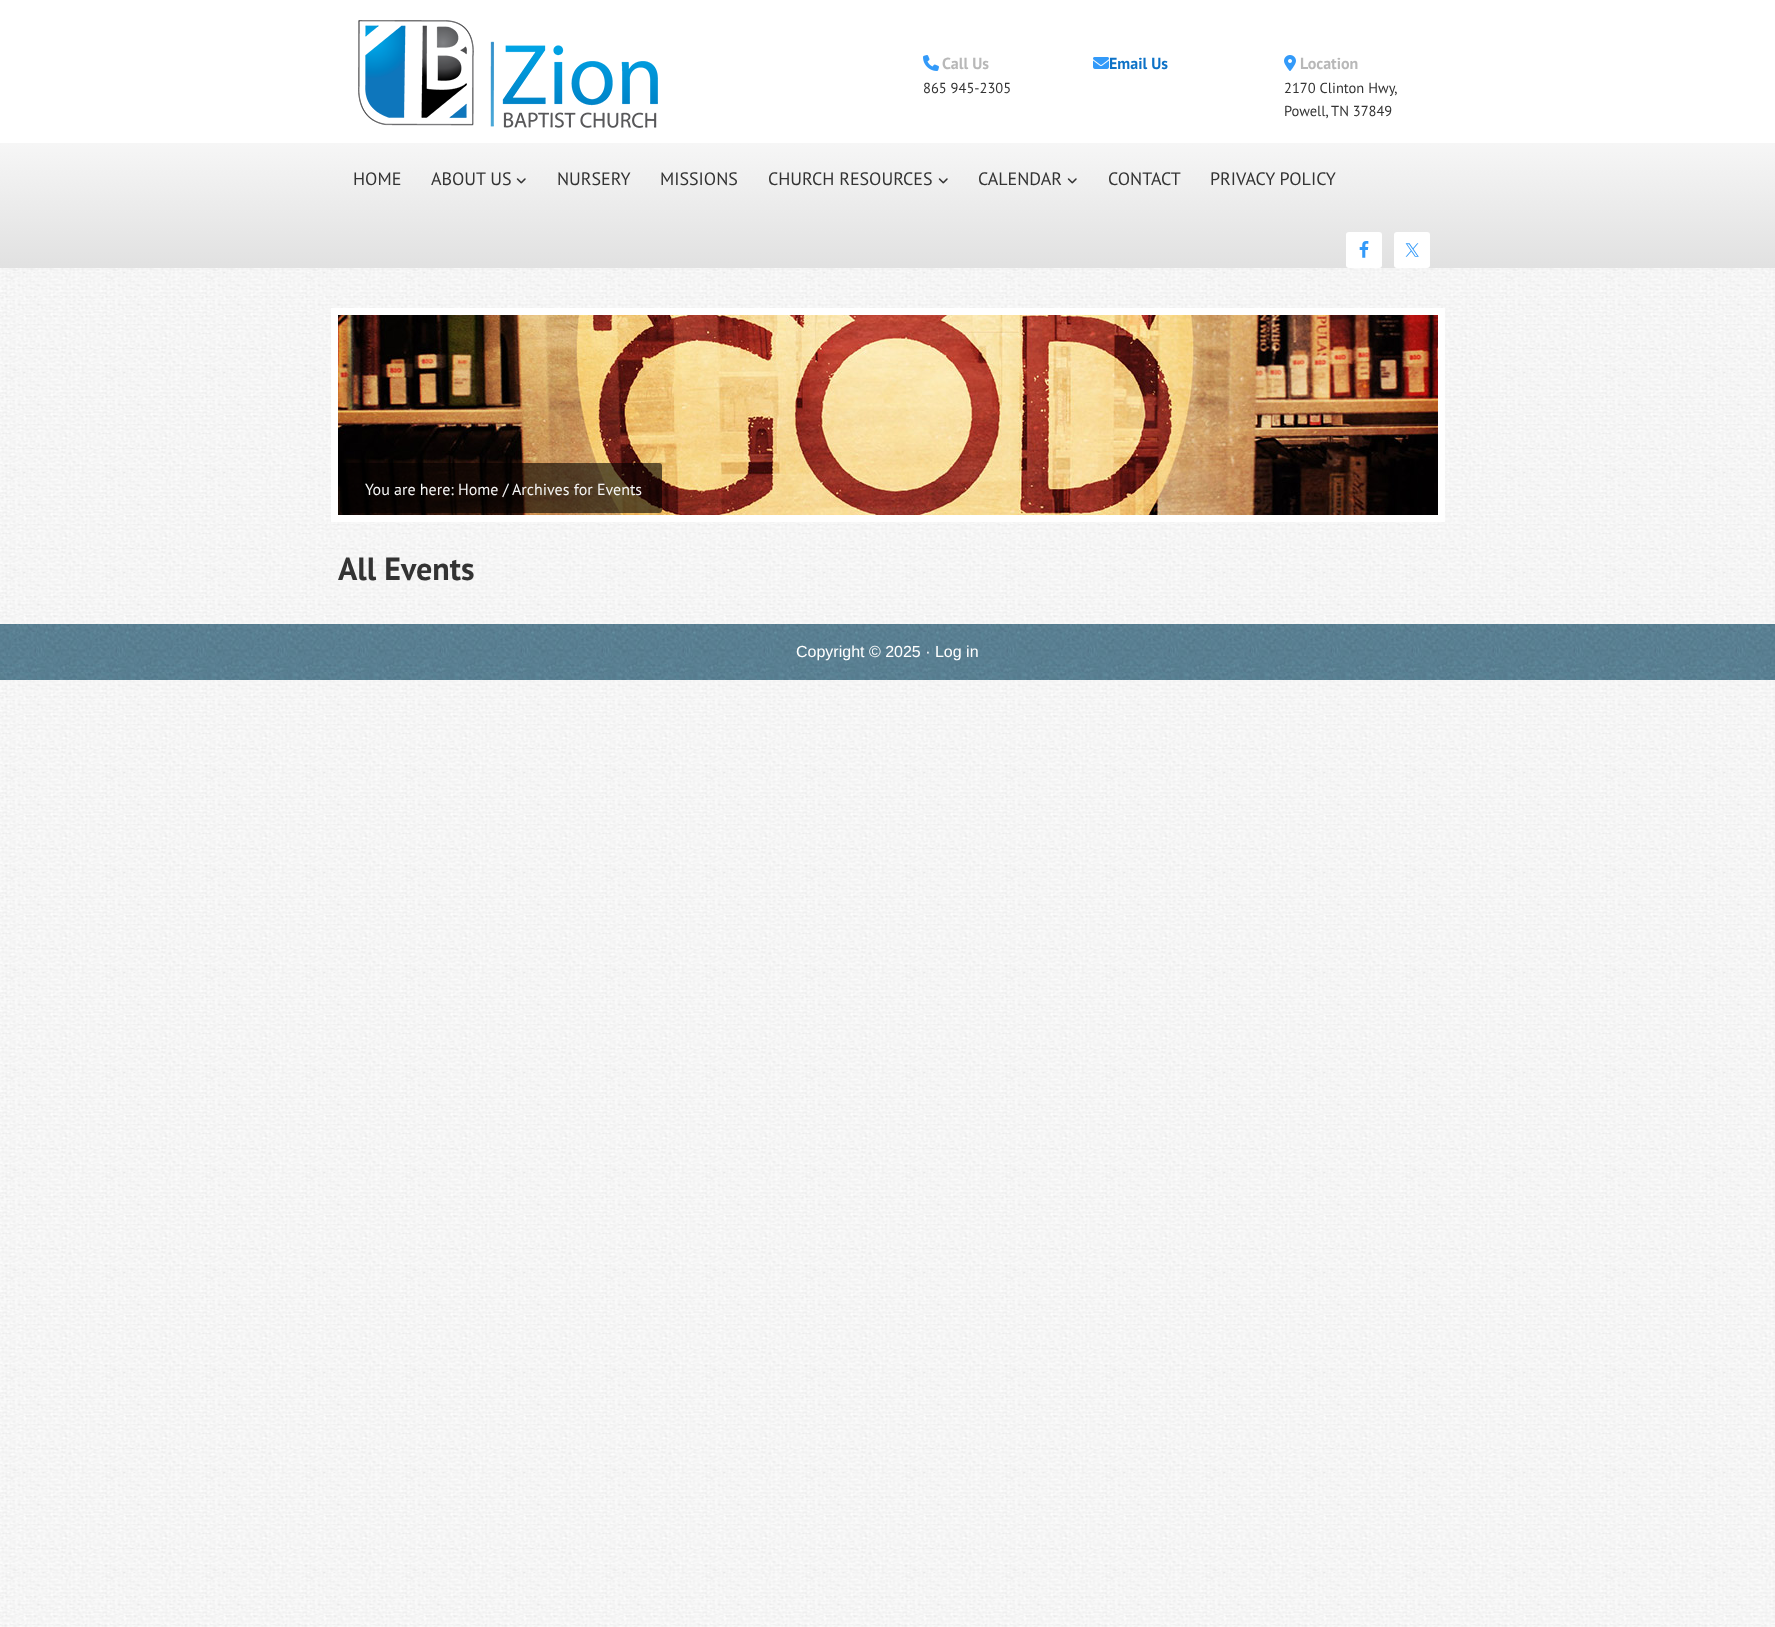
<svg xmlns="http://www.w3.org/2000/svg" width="1775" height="1627">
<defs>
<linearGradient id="g1" gradientUnits="userSpaceOnUse" x1="888" y1="143" x2="888" y2="268"><stop offset="0.01" stop-color="#f6f6f6"/><stop offset="1" stop-color="#e1e1e1"/></linearGradient>
</defs>
<rect width="100%" height="100%" fill="#fff"/>
<image x="0" y="268" width="1775" height="1359" href="media/1.png"/>
<image x="358" y="20" width="300" height="108" href="media/2.png"/>
<image x="923" y="55" width="16" height="16" href="media/3.png"/>
<text x="942" y="69" style="font-family:PT Sans;font-size:16px;font-weight:bold;fill:#b8b8b8">Call Us</text>
<text x="923" y="93" style="font-family:PT Sans;font-size:14.5px;fill:#333">865 945-2305</text>
<image x="1093" y="57" width="16" height="12" href="media/4.png"/>
<text x="1109" y="69" style="font-family:PT Sans;font-size:16px;font-weight:bold;fill:#0d72c7">Email Us</text>
<image x="1284" y="55" width="12" height="16" href="media/5.png"/>
<text x="1300" y="69" style="font-family:PT Sans;font-size:16px;font-weight:bold;fill:#b8b8b8">Location</text>
<text x="1284" y="93" style="font-family:PT Sans;font-size:14.5px;fill:#333">2170 Clinton Hwy,</text>
<text x="1284" y="116" style="font-family:PT Sans;font-size:14.5px;fill:#333">Powell, TN 37849</text>
<rect y="143" width="1775" height="125" fill="url(#g1)"/>
<text x="353" y="185" style="font-family:PT Sans;font-size:18px;fill:#333">HOME</text>
<text x="431" y="185" style="font-family:PT Sans;font-size:18px;fill:#333">ABOUT US</text>
<image x="516" y="178" width="10" height="6" href="media/6.png"/>
<text x="557" y="185" style="font-family:PT Sans;font-size:18px;fill:#333">NURSERY</text>
<text x="660" y="185" style="font-family:PT Sans;font-size:18px;fill:#333">MISSIONS</text>
<text x="768" y="185" style="font-family:PT Sans;font-size:18px;fill:#333">CHURCH RESOURCES</text>
<image x="938" y="178" width="10" height="6" href="media/6.png"/>
<text x="978" y="185" style="font-family:PT Sans;font-size:18px;fill:#333">CALENDAR</text>
<image x="1067" y="178" width="10" height="6" href="media/6.png"/>
<text x="1108" y="185" style="font-family:PT Sans;font-size:18px;fill:#333">CONTACT</text>
<text x="1210" y="185" style="font-family:PT Sans;font-size:18px;fill:#333">PRIVACY POLICY</text>
<rect x="1346" y="232" width="36" height="36" rx="3" fill="#fff"/>
<image x="1359" y="241" width="10" height="17" href="media/7.png"/>
<rect x="1394" y="232" width="36" height="36" rx="3" fill="#fff"/>
<image x="1405" y="243" width="14" height="14" href="media/8.png"/>
<rect x="331" y="308" width="1114" height="214" fill="#00000033" filter="blur(0.5px)"/>
<rect x="334.5" y="311.5" width="1107" height="207" fill="none" stroke="#fff" stroke-width="7"/>
<image x="338" y="315" width="1100" height="200" href="media/9.png"/>
<rect x="340" y="463" width="322" height="50" rx="3" fill="#00000099"/>
<text x="365" y="495" style="font-family:PT Sans;font-size:16px;fill:#f5f5f5">You are here: Home /</text>
<text x="512" y="495" style="font-family:PT Sans;font-size:16px;fill:#f5f5f5">Archives for Events</text>
<text x="338" y="580" style="font-family:PT Sans;font-size:32px;font-weight:bold;fill:#333">All Events</text>
<image x="0" y="624" width="1775" height="56" href="media/10.png"/>
<text x="796" y="657" style="font-family:Liberation Sans;font-size:16px;fill:#fff">Copyright © 2025 · Log in</text>
</svg>
